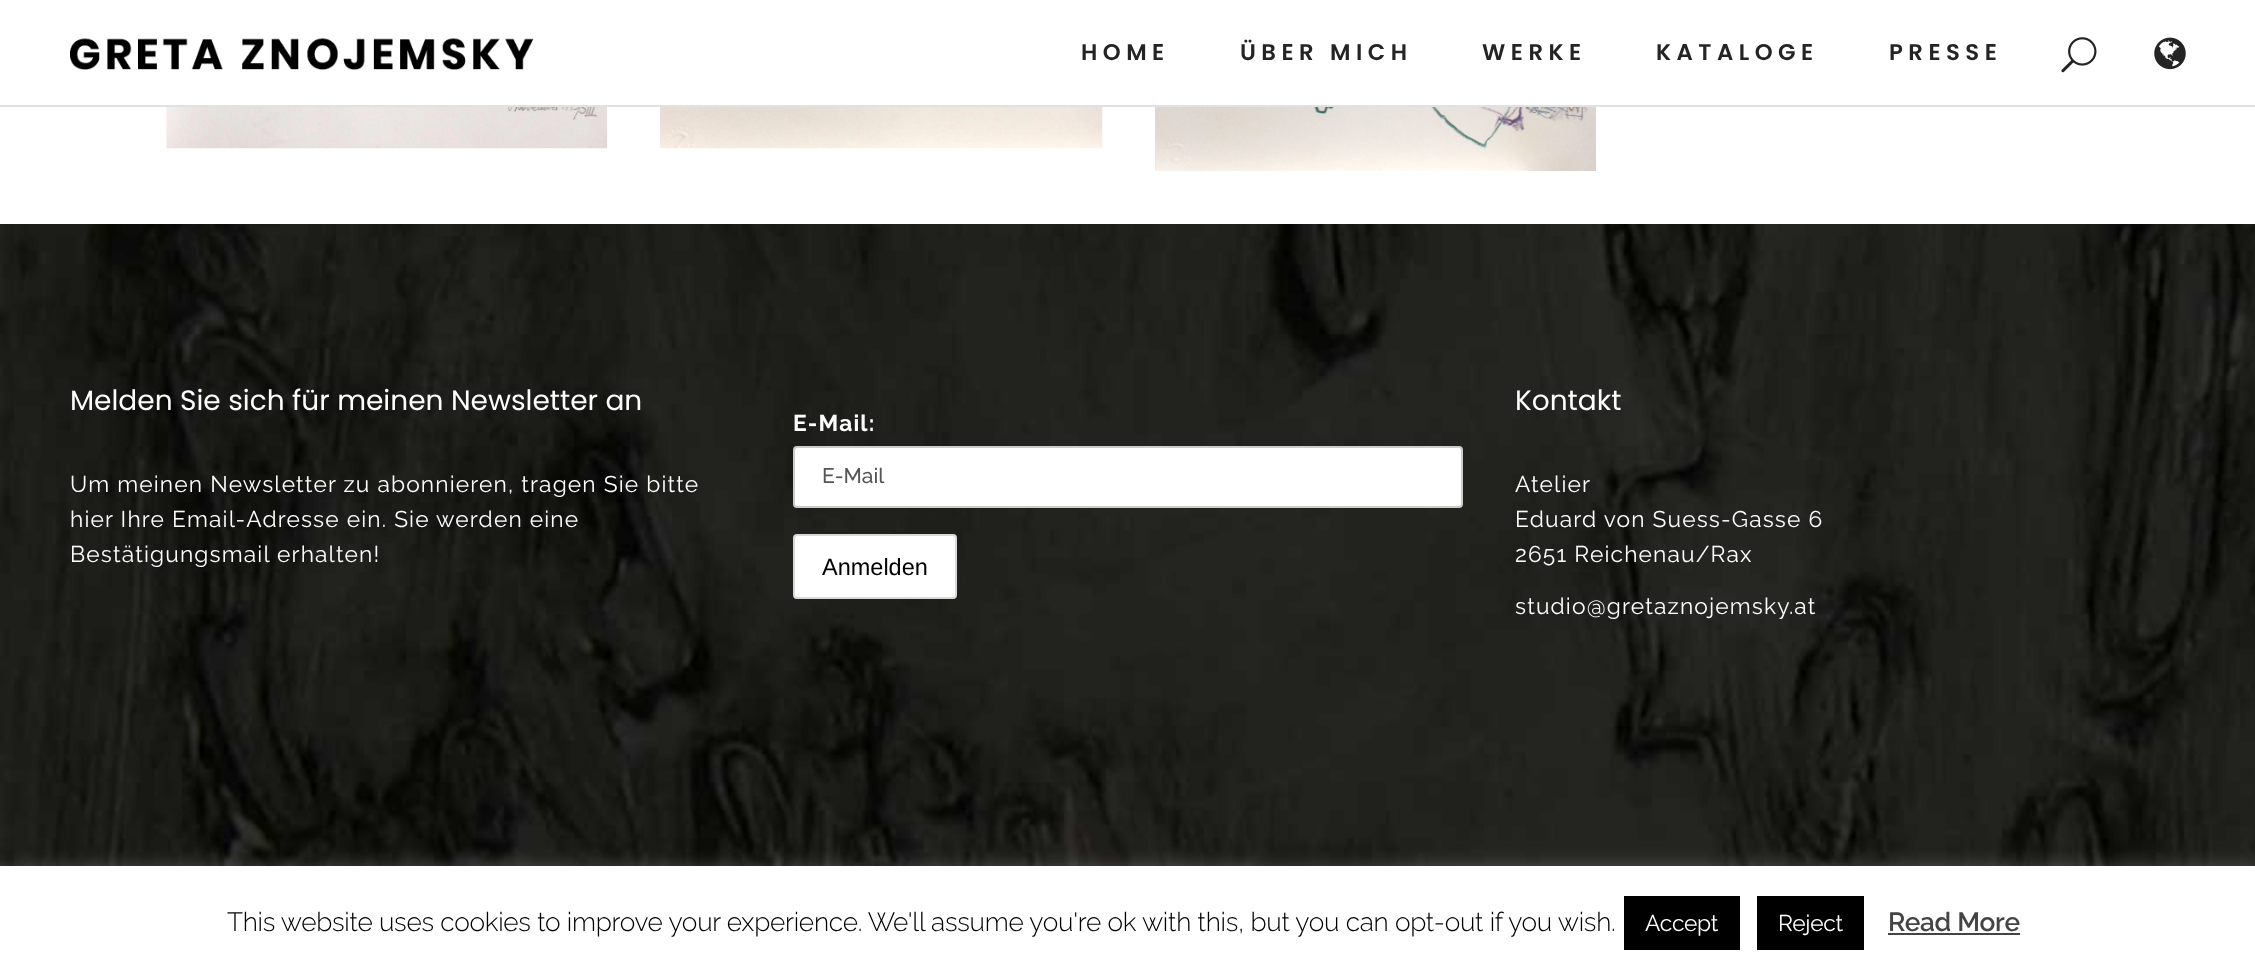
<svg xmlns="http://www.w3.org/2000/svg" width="2255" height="980">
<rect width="100%" height="100%" fill="#fff"/>
<rect y="105" width="2255" height="2" fill="#e1e1e1"/>
<image x="70" y="38" width="464" height="32" href="media/1.png"/>
<text x="1081" y="60" style="font-family:Poppins;font-size:22.75px;font-weight:600;letter-spacing:5.5px;fill:#242424">HOME</text>
<text x="1240" y="60" style="font-family:Poppins;font-size:22.75px;font-weight:600;letter-spacing:5.5px;fill:#242424">ÜBER MICH</text>
<text x="1482" y="60" style="font-family:Poppins;font-size:22.75px;font-weight:600;letter-spacing:5.5px;fill:#242424">WERKE</text>
<text x="1656" y="60" style="font-family:Poppins;font-size:22.75px;font-weight:600;letter-spacing:5.5px;fill:#242424">KATALOGE</text>
<text x="1889" y="60" style="font-family:Poppins;font-size:22.75px;font-weight:600;letter-spacing:5.5px;fill:#242424">PRESSE</text>
<image x="2061" y="37" width="36" height="36" href="media/2.png"/>
<image x="2154" y="37" width="32" height="33" href="media/3.png"/>
<image x="166" y="107" width="441" height="42" href="media/4.png"/>
<image x="660" y="107" width="443" height="42" href="media/5.png"/>
<image x="1155" y="107" width="441" height="64" href="media/6.png"/>
<image x="0" y="224" width="2255" height="642" href="media/7.png"/>
<text x="70" y="410" style="font-family:Poppins;font-size:28px;fill:#fff">Melden Sie sich für meinen Newsletter an</text>
<text x="70" y="492" style="font-family:Raleway;font-size:22.75px;letter-spacing:1.15px;fill:#fff">Um meinen Newsletter zu abonnieren, tragen Sie bitte</text>
<text x="70" y="527" style="font-family:Raleway;font-size:22.75px;letter-spacing:1.15px;fill:#fff">hier Ihre Email-Adresse ein. Sie werden eine</text>
<text x="70" y="562" style="font-family:Raleway;font-size:22.75px;letter-spacing:1.15px;fill:#fff">Bestätigungsmail erhalten!</text>
<text x="793" y="431" style="font-family:Raleway;font-size:22.75px;font-weight:bold;letter-spacing:1.15px;fill:#fff">E-Mail:</text>
<rect x="794" y="447" width="668" height="60" rx="3" fill="#fff" stroke="#ccc" stroke-width="2"/>
<text x="822" y="483" style="font-family:Raleway;font-size:21px;font-weight:500;fill:#555">E-Mail</text>
<rect x="794" y="535" width="162" height="63" rx="3" fill="#fff" stroke="#d9d9d9" stroke-width="2"/>
<text x="822" y="575" style="font-family:Liberation Sans;font-size:23.5px;fill:#000">Anmelden</text>
<text x="1515" y="410" style="font-family:Poppins;font-size:28px;fill:#fff">Kontakt</text>
<text x="1515" y="492" style="font-family:Raleway;font-size:22.75px;letter-spacing:1.15px;fill:#fff">Atelier</text>
<text x="1515" y="527" style="font-family:Raleway;font-size:22.75px;letter-spacing:1.15px;fill:#fff">Eduard von Suess-Gasse 6</text>
<text x="1515" y="562" style="font-family:Raleway;font-size:22.75px;letter-spacing:1.15px;fill:#fff">2651 Reichenau/Rax</text>
<text x="1515" y="614" style="font-family:Raleway;font-size:22.75px;letter-spacing:1.15px;fill:#fff">studio@gretaznojemsky.at</text>
<rect y="865" width="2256" height="113" fill="#acabab4d" filter="blur(9px)"/>
<rect y="866" width="2255" height="114" fill="#fff"/>
<text x="227" y="931" style="font-family:Raleway;font-size:26.25px;font-weight:300;letter-spacing:-0.26px;fill:#000">This website uses cookies to improve your experience. We'll assume you're ok with this, but you can opt-out if you wish.</text>
<rect x="1624" y="896" width="116" height="54" fill="#000"/>
<text x="1645" y="931" style="font-family:Raleway;font-size:22.75px;letter-spacing:-0.26px;fill:#fff">Accept</text>
<rect x="1757" y="896" width="107" height="54" fill="#000"/>
<text x="1778" y="931" style="font-family:Raleway;font-size:22.75px;letter-spacing:-0.26px;fill:#fff">Reject</text>
<text x="1888" y="931" style="font-family:Raleway;font-size:26.25px;font-weight:600;letter-spacing:-0.26px;fill:#444">Read More</text>
<rect x="1888" y="933" width="132" height="2" fill="#444"/>
</svg>
